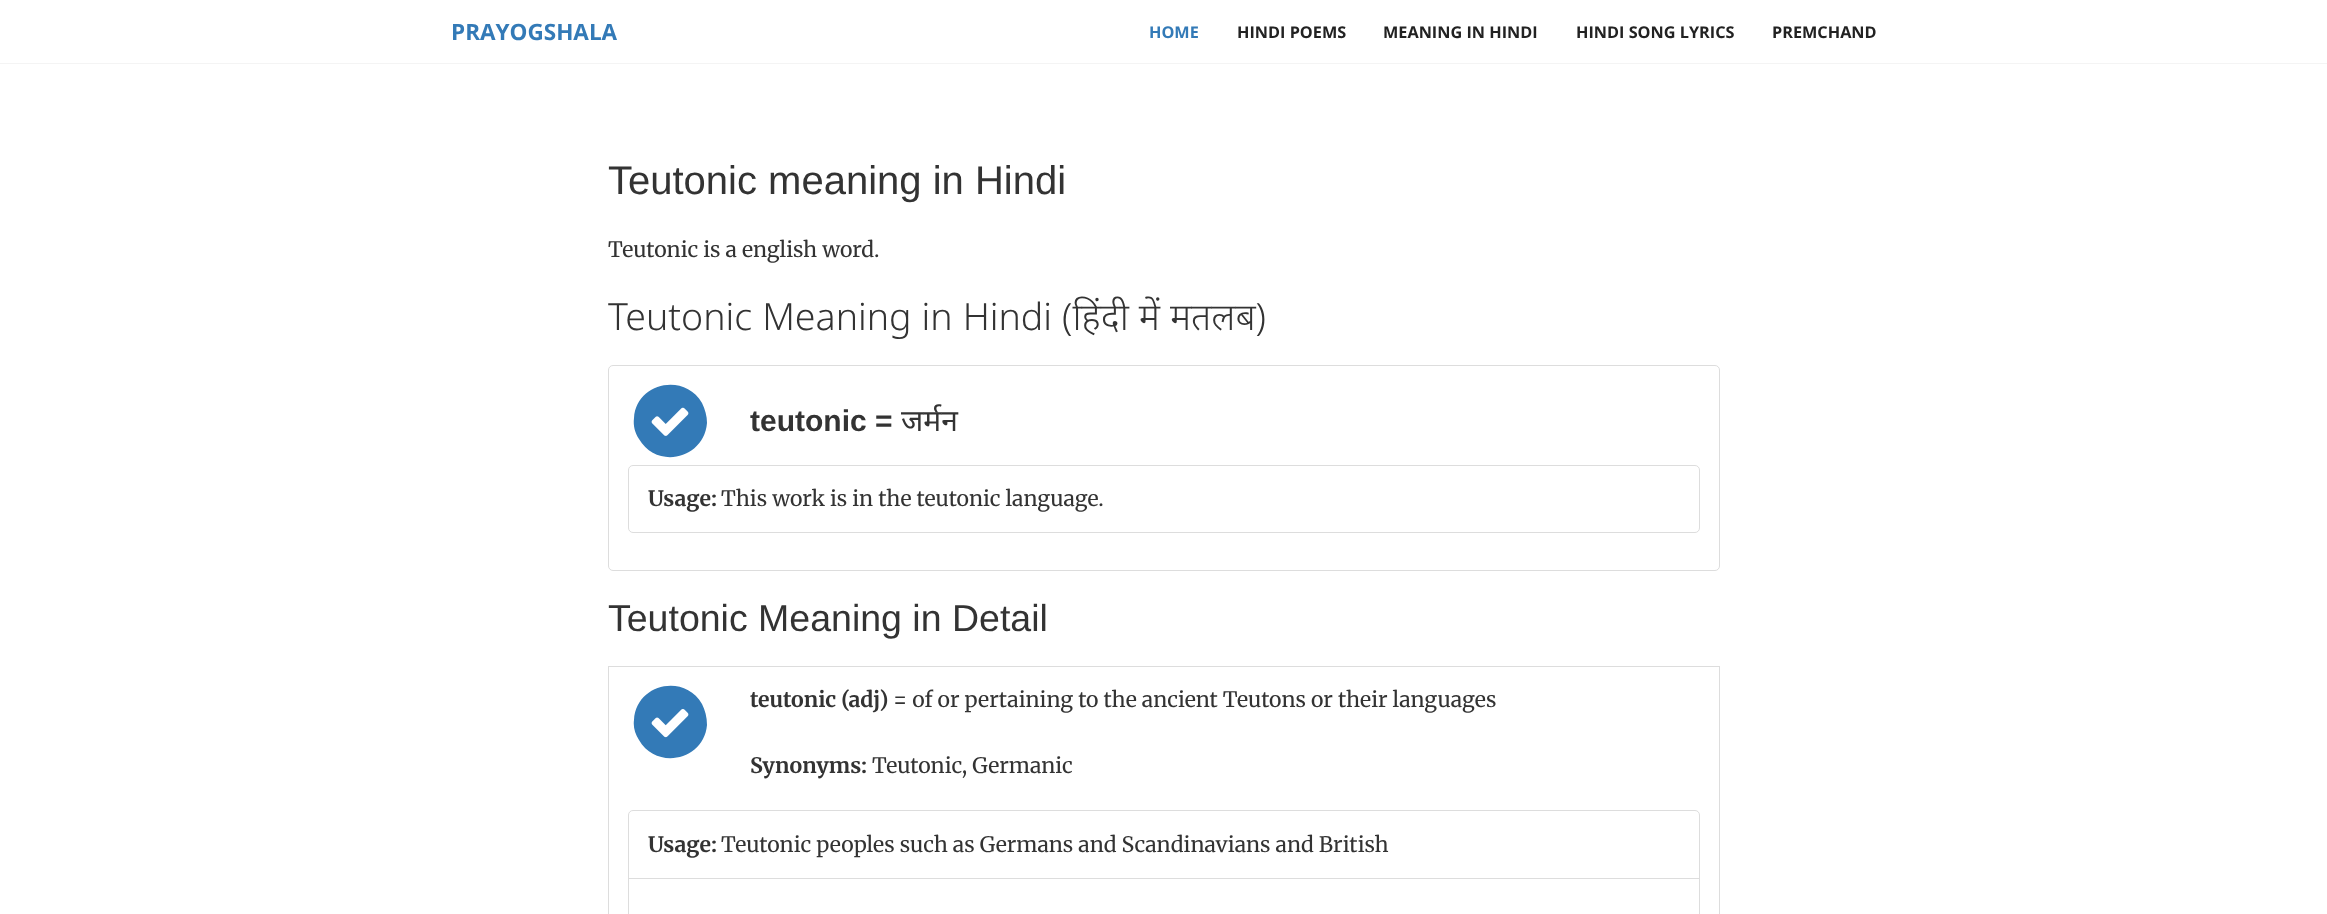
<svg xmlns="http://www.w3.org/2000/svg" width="2327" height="914">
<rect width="100%" height="100%" fill="#fff"/>
<rect y="63" width="2327" height="1" fill="#f4f4f4"/>
<text x="451" y="40" style="font-family:Open Sans;font-size:22.5px;font-weight:bold;fill:#337ab7">PRAYOGSHALA</text>
<text x="1149" y="38" style="font-family:Open Sans;font-size:16.25px;font-weight:bold;fill:#337ab7">HOME</text>
<text x="1237" y="38" style="font-family:Open Sans;font-size:16.25px;font-weight:bold;fill:#222">HINDI POEMS</text>
<text x="1383" y="38" style="font-family:Open Sans;font-size:16.25px;font-weight:bold;fill:#222">MEANING IN HINDI</text>
<text x="1576" y="38" style="font-family:Open Sans;font-size:16.25px;font-weight:bold;fill:#222">HINDI SONG LYRICS</text>
<text x="1772" y="38" style="font-family:Open Sans;font-size:16.25px;font-weight:bold;fill:#222">PREMCHAND</text>
<text x="608" y="194" style="font-family:Liberation Sans;font-size:40px;fill:#333">Teutonic meaning in Hindi</text>
<text x="608" y="257" style="font-family:Merriweather;font-size:21.25px;fill:#333">Teutonic is a english word.</text>
<text x="608" y="330" word-spacing="0.25" style="font-family:Noto Sans;font-size:37.5px;font-weight:300;fill:#333">Teutonic Meaning in Hindi (हिंदी में मतलब)</text>
<rect x="608.5" y="365.5" width="1111" height="205" rx="4.5" fill="none" stroke="#ddd"/>
<path d="M702 403c3 6 5 13 5 20c-3 36-50 47-68 16c-4-6-6-13-5-21c2-35 50-46 68-15z" fill="#337ab7"/>
<image x="651" y="407" width="38" height="29" href="media/1.png"/>
<text x="750" y="431" style="font-family:Liberation Sans;font-size:30px;font-weight:bold;fill:#333">teutonic =</text>
<text x="901" y="431" style="font-family:Noto Sans;font-size:30px;fill:#333">जर्मन</text>
<rect x="628.5" y="465.5" width="1071" height="67" rx="4.5" fill="none" stroke="#ddd"/>
<text x="648" y="506" style="font-family:Merriweather;font-size:21.25px;font-weight:bold;fill:#333">Usage:</text>
<text x="721" y="506" style="font-family:Merriweather;font-size:21.25px;fill:#333">This work is in the teutonic language.</text>
<text x="608" y="631" style="font-family:Liberation Sans;font-size:37.5px;fill:#333">Teutonic Meaning in Detail</text>
<rect x="608.5" y="666.5" width="1111" height="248" fill="none" stroke="#ddd"/>
<path d="M702 704c3 6 5 13 5 21c-3 35-50 46-68 15c-4-6-6-13-5-20c2-36 50-47 68-16z" fill="#337ab7"/>
<image x="651" y="709" width="38" height="29" href="media/2.png"/>
<text x="750" y="707" style="font-family:Merriweather;font-size:21.25px;font-weight:bold;fill:#333">teutonic (adj)</text>
<text x="893" y="707" style="font-family:Merriweather;font-size:21.25px;fill:#333">= of or pertaining to the ancient Teutons or their languages</text>
<text x="750" y="773" style="font-family:Merriweather;font-size:21.25px;font-weight:bold;fill:#333">Synonyms:</text>
<text x="872" y="773" style="font-family:Merriweather;font-size:21.25px;fill:#333">Teutonic, Germanic</text>
<path d="M633 810.5h1062c2.5 0 4.5 2 4.5 4.5v63.5h-1071v-63.5c0-2.5 2-4.5 4.5-4.5z" fill="none" stroke="#ddd"/>
<text x="648" y="852" style="font-family:Merriweather;font-size:21.25px;font-weight:bold;fill:#333">Usage:</text>
<text x="721" y="852" style="font-family:Merriweather;font-size:21.25px;fill:#333">Teutonic peoples such as Germans and Scandinavians and British</text>
<rect x="628.5" y="878.5" width="1071" height="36" fill="none" stroke="#ddd"/>
</svg>
